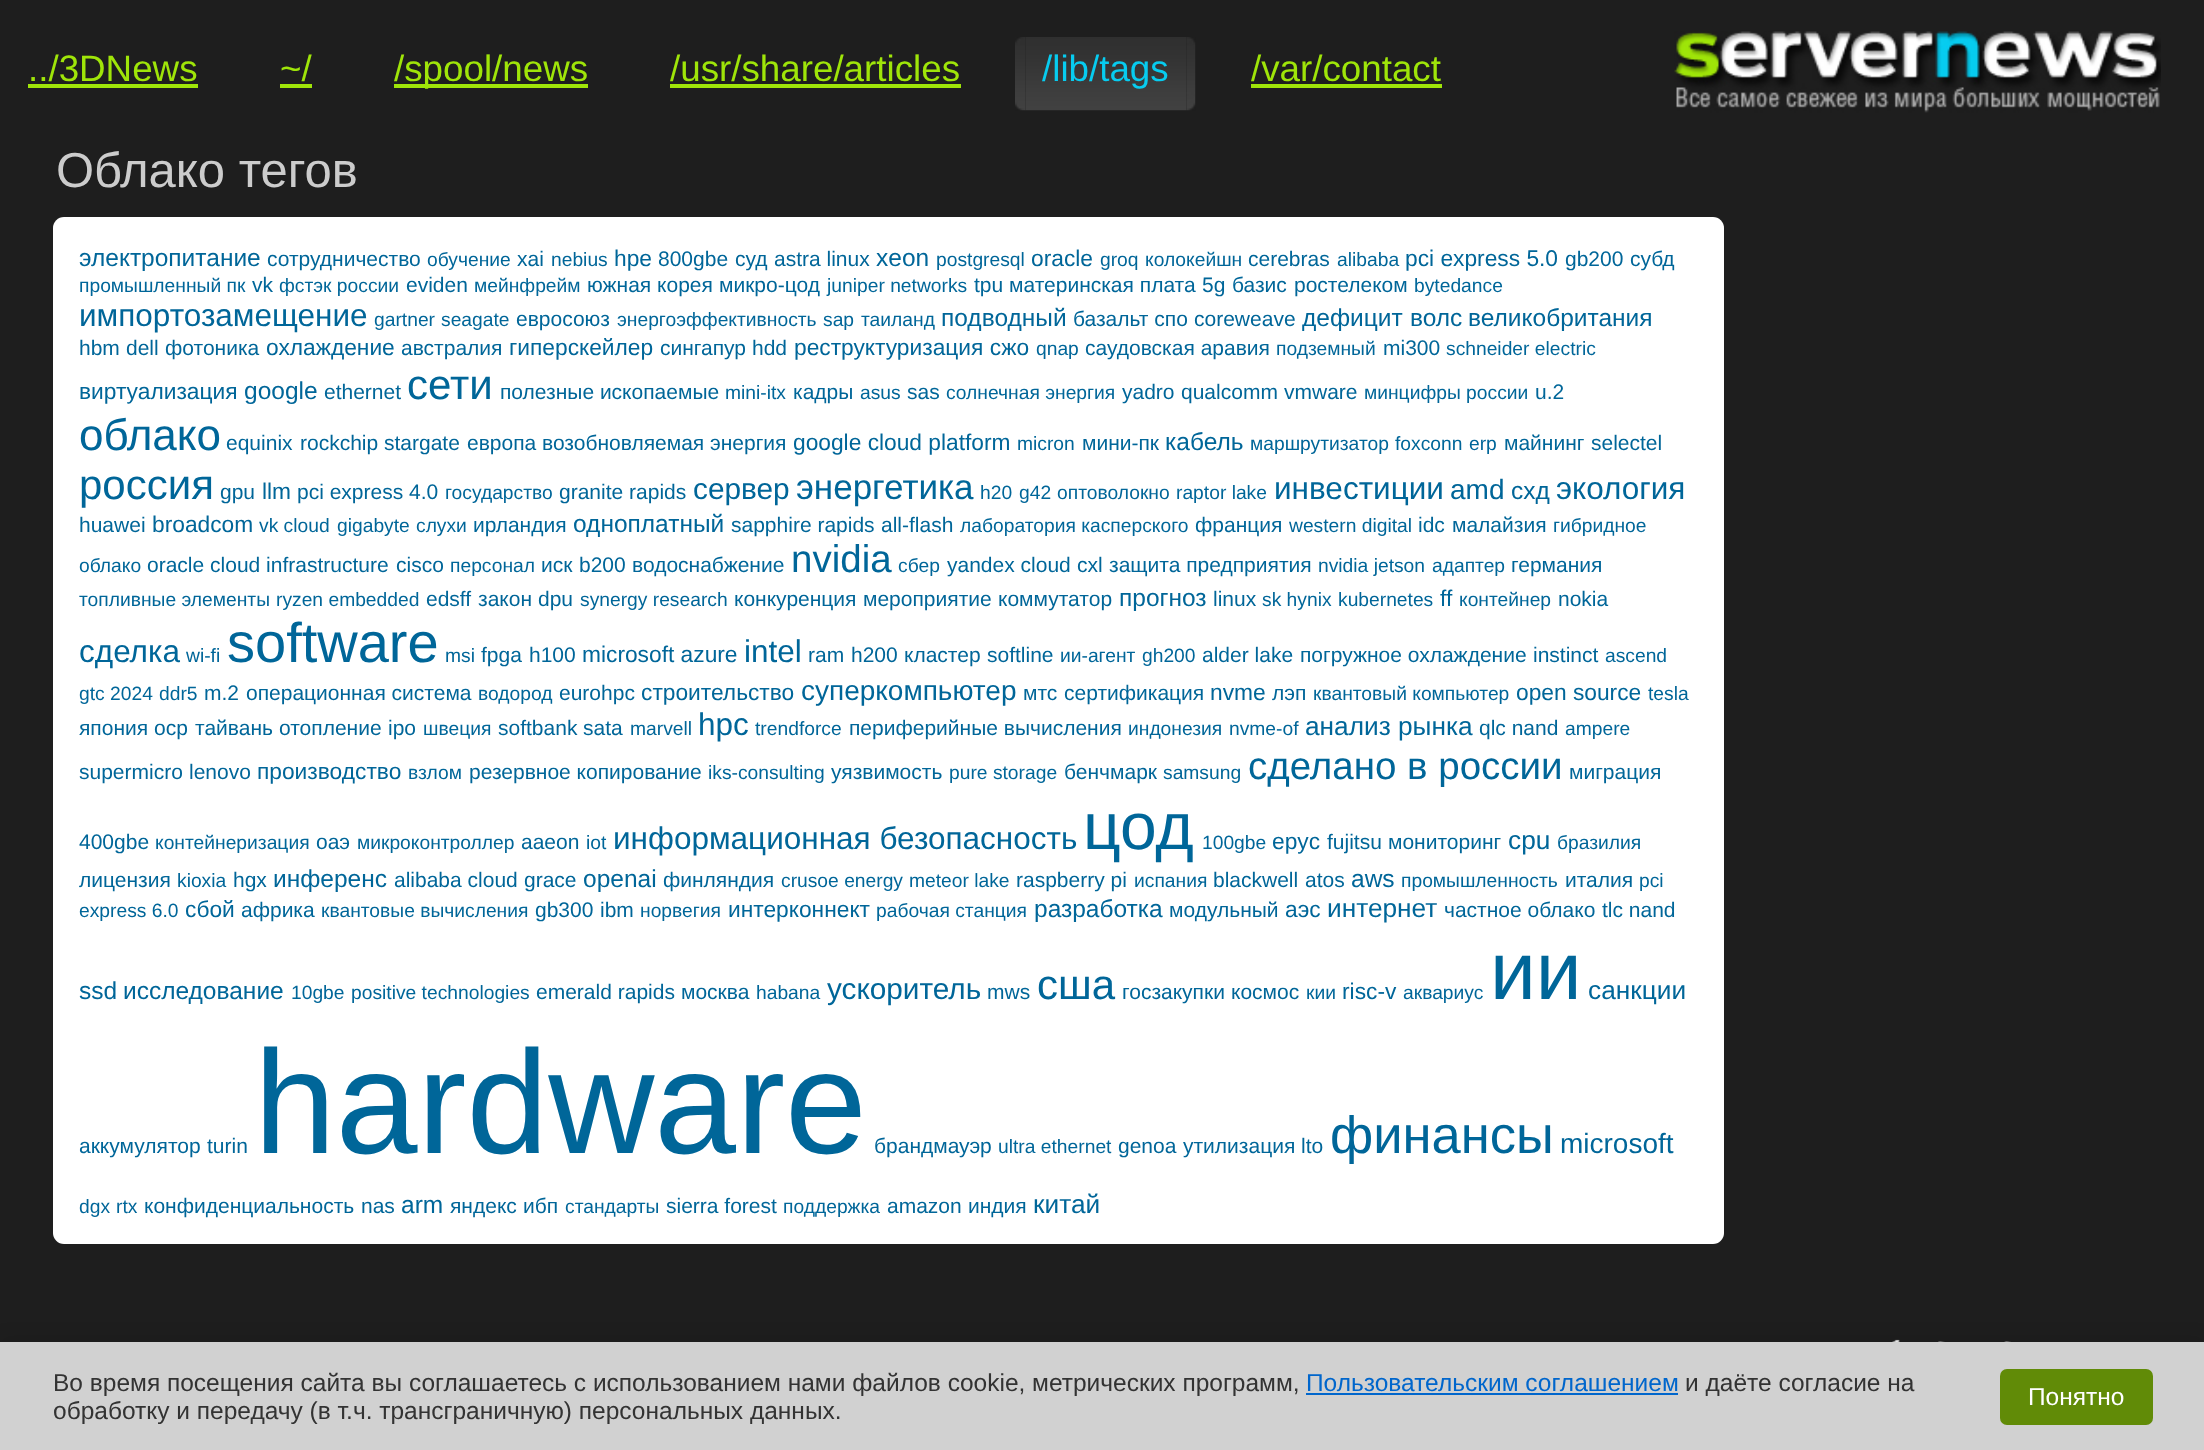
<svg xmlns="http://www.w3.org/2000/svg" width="2204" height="1450">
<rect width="100%" height="100%" fill="#1e1e1e"/>
<text x="28" y="81" style="font-family:Liberation Sans;font-size:36.75px;fill:#9fe509">../3DNews</text>
<rect x="28" y="84" width="170" height="4" fill="#9fe509"/>
<text x="280" y="81" style="font-family:Liberation Sans;font-size:36.75px;fill:#9fe509">~/</text>
<rect x="280" y="84" width="32" height="4" fill="#9fe509"/>
<rect x="394" y="84" width="194" height="4" fill="#9fe509"/>
<text x="394" y="81" style="font-family:Liberation Sans;font-size:36.75px;fill:#9fe509">/spool/news</text>
<text x="670" y="81" style="font-family:Liberation Sans;font-size:36.75px;fill:#9fe509">/usr/share/articles</text>
<rect x="670" y="84" width="291" height="4" fill="#9fe509"/>
<image x="1015" y="37" width="11" height="74" href="media/1.png"/>
<image x="1025" y="37" width="162" height="74" href="media/2.png"/>
<text x="1042" y="81" style="font-family:Liberation Sans;font-size:36.75px;fill:#07ccf0">/lib/tags</text>
<image x="1186" y="37" width="10" height="74" href="media/3.png"/>
<text x="1251" y="81" style="font-family:Liberation Sans;font-size:36.75px;fill:#9fe509">/var/contact</text>
<rect x="1251" y="84" width="191" height="4" fill="#9fe509"/>
<image x="1674" y="31" width="487" height="82" href="media/4.png"/>
<text x="56" y="187" style="font-family:Liberation Sans;font-size:49px;fill:#ccc">Облако тегов</text>
<rect x="53" y="217" width="1671" height="1027" rx="11" fill="#fff"/>
<text x="79" y="266" style="font-family:Liberation Sans;font-size:24.5px;fill:#069">электропитание</text>
<text x="267" y="266" style="font-family:Liberation Sans;font-size:21px;fill:#069">сотрудничество</text>
<text x="427" y="266" style="font-family:Liberation Sans;font-size:19.25px;fill:#069">обучение</text>
<text x="517" y="266" style="font-family:Liberation Sans;font-size:21px;fill:#069">xai</text>
<text x="551" y="266" style="font-family:Liberation Sans;font-size:19.25px;fill:#069">nebius</text>
<text x="614" y="266" style="font-family:Liberation Sans;font-size:22.75px;fill:#069">hpe</text>
<text x="658" y="266" style="font-family:Liberation Sans;font-size:21px;fill:#069">800gbe</text>
<text x="735" y="266" style="font-family:Liberation Sans;font-size:21px;fill:#069">суд</text>
<text x="774" y="266" style="font-family:Liberation Sans;font-size:21px;fill:#069">astra linux</text>
<text x="876" y="266" style="font-family:Liberation Sans;font-size:24.5px;fill:#069">xeon</text>
<text x="936" y="266" style="font-family:Liberation Sans;font-size:19.25px;fill:#069">postgresql</text>
<text x="1031" y="266" style="font-family:Liberation Sans;font-size:22.75px;fill:#069">oracle</text>
<text x="1100" y="266" style="font-family:Liberation Sans;font-size:19.25px;fill:#069">groq</text>
<text x="1145" y="266" style="font-family:Liberation Sans;font-size:19.25px;fill:#069">колокейшн</text>
<text x="1248" y="266" style="font-family:Liberation Sans;font-size:21px;fill:#069">cerebras</text>
<text x="1337" y="266" style="font-family:Liberation Sans;font-size:19.25px;fill:#069">alibaba</text>
<text x="1405" y="266" style="font-family:Liberation Sans;font-size:22.75px;fill:#069">pci express 5.0</text>
<text x="1565" y="266" style="font-family:Liberation Sans;font-size:21px;fill:#069">gb200</text>
<text x="1630" y="266" style="font-family:Liberation Sans;font-size:21px;fill:#069">субд</text>
<text x="79" y="292" style="font-family:Liberation Sans;font-size:19.25px;fill:#069">промышленный пк</text>
<text x="252" y="292" style="font-family:Liberation Sans;font-size:21px;fill:#069">vk</text>
<text x="279" y="292" style="font-family:Liberation Sans;font-size:19.25px;fill:#069">фстэк россии</text>
<text x="406" y="292" style="font-family:Liberation Sans;font-size:21px;fill:#069">eviden</text>
<text x="474" y="292" style="font-family:Liberation Sans;font-size:19.25px;fill:#069">мейнфрейм</text>
<text x="587" y="292" style="font-family:Liberation Sans;font-size:21px;fill:#069">южная корея</text>
<text x="719" y="292" style="font-family:Liberation Sans;font-size:21px;fill:#069">микро-цод</text>
<text x="827" y="292" style="font-family:Liberation Sans;font-size:19.25px;fill:#069">juniper networks</text>
<text x="974" y="292" style="font-family:Liberation Sans;font-size:21px;fill:#069">tpu</text>
<text x="1009" y="292" style="font-family:Liberation Sans;font-size:21px;fill:#069">материнская плата</text>
<text x="1202" y="292" style="font-family:Liberation Sans;font-size:21px;fill:#069">5g</text>
<text x="1232" y="292" style="font-family:Liberation Sans;font-size:21px;fill:#069">базис</text>
<text x="1294" y="292" style="font-family:Liberation Sans;font-size:21px;fill:#069">ростелеком</text>
<text x="1414" y="292" style="font-family:Liberation Sans;font-size:19.25px;fill:#069">bytedance</text>
<text x="79" y="326" style="font-family:Liberation Sans;font-size:31.5px;fill:#069">импортозамещение</text>
<text x="374" y="326" style="font-family:Liberation Sans;font-size:19.25px;fill:#069">gartner</text>
<text x="441" y="326" style="font-family:Liberation Sans;font-size:19.25px;fill:#069">seagate</text>
<text x="516" y="326" style="font-family:Liberation Sans;font-size:21px;fill:#069">евросоюз</text>
<text x="617" y="326" style="font-family:Liberation Sans;font-size:19.25px;fill:#069">энергоэффективность</text>
<text x="823" y="326" style="font-family:Liberation Sans;font-size:19.25px;fill:#069">sap</text>
<text x="861" y="326" style="font-family:Liberation Sans;font-size:19.25px;fill:#069">таиланд</text>
<text x="941" y="326" style="font-family:Liberation Sans;font-size:24.5px;fill:#069">подводный</text>
<text x="1073" y="326" style="font-family:Liberation Sans;font-size:21px;fill:#069">базальт спо</text>
<text x="1194" y="326" style="font-family:Liberation Sans;font-size:21px;fill:#069">coreweave</text>
<text x="1302" y="326" style="font-family:Liberation Sans;font-size:24.5px;fill:#069">дефицит</text>
<text x="1410" y="326" style="font-family:Liberation Sans;font-size:24.5px;fill:#069">волс</text>
<text x="1468" y="326" style="font-family:Liberation Sans;font-size:24.5px;fill:#069">великобритания</text>
<text x="79" y="355" style="font-family:Liberation Sans;font-size:21px;fill:#069">hbm</text>
<text x="126" y="355" style="font-family:Liberation Sans;font-size:21px;fill:#069">dell</text>
<text x="165" y="355" style="font-family:Liberation Sans;font-size:21px;fill:#069">фотоника</text>
<text x="266" y="355" style="font-family:Liberation Sans;font-size:22.75px;fill:#069">охлаждение</text>
<text x="401" y="355" style="font-family:Liberation Sans;font-size:21px;fill:#069">австралия</text>
<text x="509" y="355" style="font-family:Liberation Sans;font-size:22.75px;fill:#069">гиперскейлер</text>
<text x="660" y="355" style="font-family:Liberation Sans;font-size:21px;fill:#069">сингапур</text>
<text x="752" y="355" style="font-family:Liberation Sans;font-size:21px;fill:#069">hdd</text>
<text x="794" y="355" style="font-family:Liberation Sans;font-size:22.75px;fill:#069">реструктуризация сжо</text>
<text x="1036" y="355" style="font-family:Liberation Sans;font-size:19.25px;fill:#069">qnap</text>
<text x="1085" y="355" style="font-family:Liberation Sans;font-size:21px;fill:#069">саудовская аравия</text>
<text x="1276" y="355" style="font-family:Liberation Sans;font-size:19.25px;fill:#069">подземный</text>
<text x="1383" y="355" style="font-family:Liberation Sans;font-size:21px;fill:#069">mi300</text>
<text x="1446" y="355" style="font-family:Liberation Sans;font-size:19.25px;fill:#069">schneider electric</text>
<text x="79" y="399" style="font-family:Liberation Sans;font-size:22.75px;fill:#069">виртуализация</text>
<text x="244" y="399" style="font-family:Liberation Sans;font-size:24.5px;fill:#069">google</text>
<text x="324" y="399" style="font-family:Liberation Sans;font-size:21px;fill:#069">ethernet</text>
<text x="407" y="399" style="font-family:Liberation Sans;font-size:42px;fill:#069">сети</text>
<text x="500" y="399" style="font-family:Liberation Sans;font-size:21px;fill:#069">полезные ископаемые</text>
<text x="725" y="399" style="font-family:Liberation Sans;font-size:19.25px;fill:#069">mini-itx</text>
<text x="793" y="399" style="font-family:Liberation Sans;font-size:21px;fill:#069">кадры</text>
<text x="860" y="399" style="font-family:Liberation Sans;font-size:19.25px;fill:#069">asus</text>
<text x="907" y="399" style="font-family:Liberation Sans;font-size:21px;fill:#069">sas</text>
<text x="946" y="399" style="font-family:Liberation Sans;font-size:19.25px;fill:#069">солнечная энергия</text>
<text x="1122" y="399" style="font-family:Liberation Sans;font-size:21px;fill:#069">yadro</text>
<text x="1181" y="399" style="font-family:Liberation Sans;font-size:21px;fill:#069">qualcomm</text>
<text x="1284" y="399" style="font-family:Liberation Sans;font-size:21px;fill:#069">vmware</text>
<text x="1364" y="399" style="font-family:Liberation Sans;font-size:19.25px;fill:#069">минцифры россии</text>
<text x="1535" y="399" style="font-family:Liberation Sans;font-size:21px;fill:#069">u.2</text>
<text x="79" y="450" style="font-family:Liberation Sans;font-size:44px;fill:#069">облако</text>
<text x="226" y="450" style="font-family:Liberation Sans;font-size:21px;fill:#069">equinix</text>
<text x="300" y="450" style="font-family:Liberation Sans;font-size:21px;fill:#069">rockchip</text>
<text x="384" y="450" style="font-family:Liberation Sans;font-size:21px;fill:#069">stargate</text>
<text x="467" y="450" style="font-family:Liberation Sans;font-size:21px;fill:#069">европа</text>
<text x="542" y="450" style="font-family:Liberation Sans;font-size:21px;fill:#069">возобновляемая энергия</text>
<text x="793" y="450" style="font-family:Liberation Sans;font-size:22.75px;fill:#069">google cloud platform</text>
<text x="1017" y="450" style="font-family:Liberation Sans;font-size:19.25px;fill:#069">micron</text>
<text x="1082" y="450" style="font-family:Liberation Sans;font-size:21px;fill:#069">мини-пк</text>
<text x="1165" y="450" style="font-family:Liberation Sans;font-size:24.5px;fill:#069">кабель</text>
<text x="1250" y="450" style="font-family:Liberation Sans;font-size:19.25px;fill:#069">маршрутизатор</text>
<text x="1395" y="450" style="font-family:Liberation Sans;font-size:19.25px;fill:#069">foxconn</text>
<text x="1469" y="450" style="font-family:Liberation Sans;font-size:19.25px;fill:#069">erp</text>
<text x="1504" y="450" style="font-family:Liberation Sans;font-size:21px;fill:#069">майнинг</text>
<text x="1591" y="450" style="font-family:Liberation Sans;font-size:21px;fill:#069">selectel</text>
<text x="79" y="499" style="font-family:Liberation Sans;font-size:42px;fill:#069">россия</text>
<text x="220" y="499" style="font-family:Liberation Sans;font-size:21px;fill:#069">gpu</text>
<text x="262" y="499" style="font-family:Liberation Sans;font-size:22.75px;fill:#069">llm</text>
<text x="297" y="499" style="font-family:Liberation Sans;font-size:21px;fill:#069">pci express 4.0</text>
<text x="445" y="499" style="font-family:Liberation Sans;font-size:19.25px;fill:#069">государство</text>
<text x="559" y="499" style="font-family:Liberation Sans;font-size:21px;fill:#069">granite rapids</text>
<text x="693" y="499" style="font-family:Liberation Sans;font-size:29.75px;fill:#069">сервер</text>
<text x="796" y="499" style="font-family:Liberation Sans;font-size:35px;fill:#069">энергетика</text>
<text x="980" y="499" style="font-family:Liberation Sans;font-size:19.25px;fill:#069">h20</text>
<text x="1019" y="499" style="font-family:Liberation Sans;font-size:19.25px;fill:#069">g42</text>
<text x="1057" y="499" style="font-family:Liberation Sans;font-size:19.25px;fill:#069">оптоволокно</text>
<text x="1176" y="499" style="font-family:Liberation Sans;font-size:19.25px;fill:#069">raptor lake</text>
<text x="1274" y="499" style="font-family:Liberation Sans;font-size:31.5px;fill:#069">инвестиции</text>
<text x="1450" y="499" style="font-family:Liberation Sans;font-size:28px;fill:#069">amd</text>
<text x="1511" y="499" style="font-family:Liberation Sans;font-size:24.5px;fill:#069">схд</text>
<text x="1556" y="499" style="font-family:Liberation Sans;font-size:31.5px;fill:#069">экология</text>
<text x="79" y="532" style="font-family:Liberation Sans;font-size:21px;fill:#069">huawei</text>
<text x="152" y="532" style="font-family:Liberation Sans;font-size:22.75px;fill:#069">broadcom</text>
<text x="259" y="532" style="font-family:Liberation Sans;font-size:19.25px;fill:#069">vk cloud</text>
<text x="337" y="532" style="font-family:Liberation Sans;font-size:19.25px;fill:#069">gigabyte</text>
<text x="416" y="532" style="font-family:Liberation Sans;font-size:19.25px;fill:#069">слухи</text>
<text x="473" y="532" style="font-family:Liberation Sans;font-size:21px;fill:#069">ирландия</text>
<text x="573" y="532" style="font-family:Liberation Sans;font-size:24.5px;fill:#069">одноплатный</text>
<text x="731" y="532" style="font-family:Liberation Sans;font-size:21px;fill:#069">sapphire rapids</text>
<text x="881" y="532" style="font-family:Liberation Sans;font-size:21px;fill:#069">all-flash</text>
<text x="960" y="532" style="font-family:Liberation Sans;font-size:19.25px;fill:#069">лаборатория касперского</text>
<text x="1195" y="532" style="font-family:Liberation Sans;font-size:21px;fill:#069">франция</text>
<text x="1289" y="532" style="font-family:Liberation Sans;font-size:19.25px;fill:#069">western digital</text>
<text x="1418" y="532" style="font-family:Liberation Sans;font-size:21px;fill:#069">idc</text>
<text x="1452" y="532" style="font-family:Liberation Sans;font-size:21px;fill:#069">малайзия</text>
<text x="1553" y="532" style="font-family:Liberation Sans;font-size:19.25px;fill:#069">гибридное</text>
<text x="79" y="572" style="font-family:Liberation Sans;font-size:19.25px;fill:#069">облако</text>
<text x="147" y="572" style="font-family:Liberation Sans;font-size:21px;fill:#069">oracle cloud infrastructure</text>
<text x="396" y="572" style="font-family:Liberation Sans;font-size:21px;fill:#069">cisco</text>
<text x="450" y="572" style="font-family:Liberation Sans;font-size:19.25px;fill:#069">персонал</text>
<text x="541" y="572" style="font-family:Liberation Sans;font-size:21px;fill:#069">иск</text>
<text x="579" y="572" style="font-family:Liberation Sans;font-size:21px;fill:#069">b200</text>
<text x="632" y="572" style="font-family:Liberation Sans;font-size:21px;fill:#069">водоснабжение</text>
<text x="791" y="572" style="font-family:Liberation Sans;font-size:38.5px;fill:#069">nvidia</text>
<text x="898" y="572" style="font-family:Liberation Sans;font-size:19.25px;fill:#069">сбер</text>
<text x="947" y="572" style="font-family:Liberation Sans;font-size:21px;fill:#069">yandex cloud</text>
<text x="1077" y="572" style="font-family:Liberation Sans;font-size:21px;fill:#069">cxl</text>
<text x="1109" y="572" style="font-family:Liberation Sans;font-size:21px;fill:#069">защита предприятия</text>
<text x="1318" y="572" style="font-family:Liberation Sans;font-size:19.25px;fill:#069">nvidia jetson</text>
<text x="1432" y="572" style="font-family:Liberation Sans;font-size:19.25px;fill:#069">адаптер</text>
<text x="1511" y="572" style="font-family:Liberation Sans;font-size:21px;fill:#069">германия</text>
<text x="79" y="606" style="font-family:Liberation Sans;font-size:19.25px;fill:#069">топливные элементы</text>
<text x="276" y="606" style="font-family:Liberation Sans;font-size:19.25px;fill:#069">ryzen embedded</text>
<text x="426" y="606" style="font-family:Liberation Sans;font-size:21px;fill:#069">edsff</text>
<text x="478" y="606" style="font-family:Liberation Sans;font-size:21px;fill:#069">закон</text>
<text x="538" y="606" style="font-family:Liberation Sans;font-size:21px;fill:#069">dpu</text>
<text x="580" y="606" style="font-family:Liberation Sans;font-size:19.25px;fill:#069">synergy research</text>
<text x="734" y="606" style="font-family:Liberation Sans;font-size:21px;fill:#069">конкуренция</text>
<text x="863" y="606" style="font-family:Liberation Sans;font-size:21px;fill:#069">мероприятие</text>
<text x="998" y="606" style="font-family:Liberation Sans;font-size:21px;fill:#069">коммутатор</text>
<text x="1119" y="606" style="font-family:Liberation Sans;font-size:24.5px;fill:#069">прогноз</text>
<text x="1213" y="606" style="font-family:Liberation Sans;font-size:21px;fill:#069">linux</text>
<text x="1262" y="606" style="font-family:Liberation Sans;font-size:19.25px;fill:#069">sk hynix</text>
<text x="1338" y="606" style="font-family:Liberation Sans;font-size:19.25px;fill:#069">kubernetes</text>
<text x="1440" y="606" style="font-family:Liberation Sans;font-size:22.75px;fill:#069">ff</text>
<text x="1459" y="606" style="font-family:Liberation Sans;font-size:19.25px;fill:#069">контейнер</text>
<text x="1558" y="606" style="font-family:Liberation Sans;font-size:21px;fill:#069">nokia</text>
<text x="79" y="662" style="font-family:Liberation Sans;font-size:31.5px;fill:#069">сделка</text>
<text x="186" y="662" style="font-family:Liberation Sans;font-size:19.25px;fill:#069">wi-fi</text>
<text x="227" y="662" style="font-family:Liberation Sans;font-size:56px;fill:#069">software</text>
<text x="445" y="662" style="font-family:Liberation Sans;font-size:19.25px;fill:#069">msi</text>
<text x="481" y="662" style="font-family:Liberation Sans;font-size:21px;fill:#069">fpga</text>
<text x="529" y="662" style="font-family:Liberation Sans;font-size:21px;fill:#069">h100</text>
<text x="582" y="662" style="font-family:Liberation Sans;font-size:22.75px;fill:#069">microsoft azure</text>
<text x="744" y="662" style="font-family:Liberation Sans;font-size:31.5px;fill:#069">intel</text>
<text x="808" y="662" style="font-family:Liberation Sans;font-size:21px;fill:#069">ram</text>
<text x="851" y="662" style="font-family:Liberation Sans;font-size:21px;fill:#069">h200</text>
<text x="904" y="662" style="font-family:Liberation Sans;font-size:21px;fill:#069">кластер</text>
<text x="987" y="662" style="font-family:Liberation Sans;font-size:21px;fill:#069">softline</text>
<text x="1060" y="662" style="font-family:Liberation Sans;font-size:19.25px;fill:#069">ии-агент</text>
<text x="1142" y="662" style="font-family:Liberation Sans;font-size:19.25px;fill:#069">gh200</text>
<text x="1202" y="662" style="font-family:Liberation Sans;font-size:21px;fill:#069">alder lake</text>
<text x="1300" y="662" style="font-family:Liberation Sans;font-size:21px;fill:#069">погружное охлаждение</text>
<text x="1533" y="662" style="font-family:Liberation Sans;font-size:21px;fill:#069">instinct</text>
<text x="1605" y="662" style="font-family:Liberation Sans;font-size:19.25px;fill:#069">ascend</text>
<text x="79" y="700" style="font-family:Liberation Sans;font-size:19.25px;fill:#069">gtc 2024</text>
<text x="159" y="700" style="font-family:Liberation Sans;font-size:19.25px;fill:#069">ddr5</text>
<text x="204" y="700" style="font-family:Liberation Sans;font-size:21px;fill:#069">m.2</text>
<text x="246" y="700" style="font-family:Liberation Sans;font-size:21px;fill:#069">операционная система</text>
<text x="478" y="700" style="font-family:Liberation Sans;font-size:19.25px;fill:#069">водород</text>
<text x="559" y="700" style="font-family:Liberation Sans;font-size:21px;fill:#069">eurohpc</text>
<text x="641" y="700" style="font-family:Liberation Sans;font-size:22.75px;fill:#069">строительство</text>
<text x="801" y="700" style="font-family:Liberation Sans;font-size:28px;fill:#069">суперкомпьютер</text>
<text x="1023" y="700" style="font-family:Liberation Sans;font-size:21px;fill:#069">мтс</text>
<text x="1064" y="700" style="font-family:Liberation Sans;font-size:21px;fill:#069">сертификация</text>
<text x="1210" y="700" style="font-family:Liberation Sans;font-size:22.75px;fill:#069">nvme</text>
<text x="1272" y="700" style="font-family:Liberation Sans;font-size:21px;fill:#069">лэп</text>
<text x="1313" y="700" style="font-family:Liberation Sans;font-size:19.25px;fill:#069">квантовый компьютер</text>
<text x="1516" y="700" style="font-family:Liberation Sans;font-size:22.75px;fill:#069">open source</text>
<text x="1648" y="700" style="font-family:Liberation Sans;font-size:19.25px;fill:#069">tesla</text>
<text x="79" y="735" style="font-family:Liberation Sans;font-size:21px;fill:#069">япония</text>
<text x="154" y="735" style="font-family:Liberation Sans;font-size:21px;fill:#069">ocp</text>
<text x="195" y="735" style="font-family:Liberation Sans;font-size:21px;fill:#069">тайвань</text>
<text x="279" y="735" style="font-family:Liberation Sans;font-size:21px;fill:#069">отопление</text>
<text x="388" y="735" style="font-family:Liberation Sans;font-size:21px;fill:#069">ipo</text>
<text x="423" y="735" style="font-family:Liberation Sans;font-size:19.25px;fill:#069">швеция</text>
<text x="498" y="735" style="font-family:Liberation Sans;font-size:21px;fill:#069">softbank</text>
<text x="583" y="735" style="font-family:Liberation Sans;font-size:21px;fill:#069">sata</text>
<text x="630" y="735" style="font-family:Liberation Sans;font-size:19.25px;fill:#069">marvell</text>
<text x="698" y="735" style="font-family:Liberation Sans;font-size:31.5px;fill:#069">hpc</text>
<text x="755" y="735" style="font-family:Liberation Sans;font-size:19.25px;fill:#069">trendforce</text>
<text x="849" y="735" style="font-family:Liberation Sans;font-size:21px;fill:#069">периферийные вычисления</text>
<text x="1128" y="735" style="font-family:Liberation Sans;font-size:19.25px;fill:#069">индонезия</text>
<text x="1229" y="735" style="font-family:Liberation Sans;font-size:19.25px;fill:#069">nvme-of</text>
<text x="1305" y="735" style="font-family:Liberation Sans;font-size:26.25px;fill:#069">анализ рынка</text>
<text x="1479" y="735" style="font-family:Liberation Sans;font-size:21px;fill:#069">qlc nand</text>
<text x="1565" y="735" style="font-family:Liberation Sans;font-size:19.25px;fill:#069">ampere</text>
<text x="79" y="779" style="font-family:Liberation Sans;font-size:21px;fill:#069">supermicro</text>
<text x="189" y="779" style="font-family:Liberation Sans;font-size:21px;fill:#069">lenovo</text>
<text x="257" y="779" style="font-family:Liberation Sans;font-size:22.75px;fill:#069">производство</text>
<text x="408" y="779" style="font-family:Liberation Sans;font-size:19.25px;fill:#069">взлом</text>
<text x="469" y="779" style="font-family:Liberation Sans;font-size:21px;fill:#069">резервное копирование</text>
<text x="708" y="779" style="font-family:Liberation Sans;font-size:19.25px;fill:#069">iks-consulting</text>
<text x="831" y="779" style="font-family:Liberation Sans;font-size:21px;fill:#069">уязвимость</text>
<text x="949" y="779" style="font-family:Liberation Sans;font-size:19.25px;fill:#069">pure storage</text>
<text x="1064" y="779" style="font-family:Liberation Sans;font-size:21px;fill:#069">бенчмарк</text>
<text x="1163" y="779" style="font-family:Liberation Sans;font-size:19.25px;fill:#069">samsung</text>
<text x="1248" y="779" style="font-family:Liberation Sans;font-size:38.5px;fill:#069">сделано в россии</text>
<text x="1569" y="779" style="font-family:Liberation Sans;font-size:21px;fill:#069">миграция</text>
<text x="79" y="849" style="font-family:Liberation Sans;font-size:21px;fill:#069">400gbe</text>
<text x="155" y="849" style="font-family:Liberation Sans;font-size:19.25px;fill:#069">контейнеризация</text>
<text x="316" y="849" style="font-family:Liberation Sans;font-size:21px;fill:#069">оаэ</text>
<text x="357" y="849" style="font-family:Liberation Sans;font-size:19.25px;fill:#069">микроконтроллер</text>
<text x="521" y="849" style="font-family:Liberation Sans;font-size:21px;fill:#069">aaeon</text>
<text x="586" y="849" style="font-family:Liberation Sans;font-size:19.25px;fill:#069">iot</text>
<text x="613" y="849" style="font-family:Liberation Sans;font-size:31.5px;fill:#069">информационная безопасность</text>
<text x="1083" y="849" style="font-family:Liberation Sans;font-size:66px;fill:#069">цод</text>
<text x="1202" y="849" style="font-family:Liberation Sans;font-size:19.25px;fill:#069">100gbe</text>
<text x="1272" y="849" style="font-family:Liberation Sans;font-size:22.75px;fill:#069">epyc</text>
<text x="1327" y="849" style="font-family:Liberation Sans;font-size:21px;fill:#069">fujitsu</text>
<text x="1388" y="849" style="font-family:Liberation Sans;font-size:21px;fill:#069">мониторинг</text>
<text x="1508" y="849" style="font-family:Liberation Sans;font-size:26.25px;fill:#069">cpu</text>
<text x="1557" y="849" style="font-family:Liberation Sans;font-size:19.25px;fill:#069">бразилия</text>
<text x="79" y="887" style="font-family:Liberation Sans;font-size:21px;fill:#069">лицензия</text>
<text x="177" y="887" style="font-family:Liberation Sans;font-size:19.25px;fill:#069">kioxia</text>
<text x="233" y="887" style="font-family:Liberation Sans;font-size:21px;fill:#069">hgx</text>
<text x="273" y="887" style="font-family:Liberation Sans;font-size:24.5px;fill:#069">инференс</text>
<text x="394" y="887" style="font-family:Liberation Sans;font-size:21px;fill:#069">alibaba cloud</text>
<text x="524" y="887" style="font-family:Liberation Sans;font-size:21px;fill:#069">grace</text>
<text x="583" y="887" style="font-family:Liberation Sans;font-size:24.5px;fill:#069">openai</text>
<text x="663" y="887" style="font-family:Liberation Sans;font-size:21px;fill:#069">финляндия</text>
<text x="781" y="887" style="font-family:Liberation Sans;font-size:19.25px;fill:#069">crusoe energy</text>
<text x="909" y="887" style="font-family:Liberation Sans;font-size:19.25px;fill:#069">meteor lake</text>
<text x="1016" y="887" style="font-family:Liberation Sans;font-size:21px;fill:#069">raspberry pi</text>
<text x="1134" y="887" style="font-family:Liberation Sans;font-size:19.25px;fill:#069">испания</text>
<text x="1213" y="887" style="font-family:Liberation Sans;font-size:21px;fill:#069">blackwell</text>
<text x="1305" y="887" style="font-family:Liberation Sans;font-size:21px;fill:#069">atos</text>
<text x="1351" y="887" style="font-family:Liberation Sans;font-size:24.5px;fill:#069">aws</text>
<text x="1401" y="887" style="font-family:Liberation Sans;font-size:19.25px;fill:#069">промышленность</text>
<text x="1565" y="887" style="font-family:Liberation Sans;font-size:21px;fill:#069">италия</text>
<text x="1639" y="887" style="font-family:Liberation Sans;font-size:19.25px;fill:#069">pci</text>
<text x="79" y="917" style="font-family:Liberation Sans;font-size:19.25px;fill:#069">express 6.0</text>
<text x="185" y="917" style="font-family:Liberation Sans;font-size:22.75px;fill:#069">сбой</text>
<text x="241" y="917" style="font-family:Liberation Sans;font-size:21px;fill:#069">африка</text>
<text x="321" y="917" style="font-family:Liberation Sans;font-size:19.25px;fill:#069">квантовые вычисления</text>
<text x="535" y="917" style="font-family:Liberation Sans;font-size:21px;fill:#069">gb300</text>
<text x="600" y="917" style="font-family:Liberation Sans;font-size:21px;fill:#069">ibm</text>
<text x="640" y="917" style="font-family:Liberation Sans;font-size:19.25px;fill:#069">норвегия</text>
<text x="728" y="917" style="font-family:Liberation Sans;font-size:22.75px;fill:#069">интерконнект</text>
<text x="876" y="917" style="font-family:Liberation Sans;font-size:19.25px;fill:#069">рабочая станция</text>
<text x="1034" y="917" style="font-family:Liberation Sans;font-size:24.5px;fill:#069">разработка</text>
<text x="1169" y="917" style="font-family:Liberation Sans;font-size:21px;fill:#069">модульный</text>
<text x="1285" y="917" style="font-family:Liberation Sans;font-size:22.75px;fill:#069">аэс</text>
<text x="1327" y="917" style="font-family:Liberation Sans;font-size:26.25px;fill:#069">интернет</text>
<text x="1444" y="917" style="font-family:Liberation Sans;font-size:21px;fill:#069">частное облако</text>
<text x="1602" y="917" style="font-family:Liberation Sans;font-size:21px;fill:#069">tlc nand</text>
<text x="79" y="999" style="font-family:Liberation Sans;font-size:24.5px;fill:#069">ssd</text>
<text x="123" y="999" style="font-family:Liberation Sans;font-size:24.5px;fill:#069">исследование</text>
<text x="291" y="999" style="font-family:Liberation Sans;font-size:19.25px;fill:#069">10gbe</text>
<text x="351" y="999" style="font-family:Liberation Sans;font-size:19.25px;fill:#069">positive technologies</text>
<text x="536" y="999" style="font-family:Liberation Sans;font-size:21px;fill:#069">emerald rapids</text>
<text x="681" y="999" style="font-family:Liberation Sans;font-size:21px;fill:#069">москва</text>
<text x="756" y="999" style="font-family:Liberation Sans;font-size:19.25px;fill:#069">habana</text>
<text x="827" y="999" style="font-family:Liberation Sans;font-size:29.75px;fill:#069">ускоритель</text>
<text x="987" y="999" style="font-family:Liberation Sans;font-size:21px;fill:#069">mws</text>
<text x="1037" y="999" style="font-family:Liberation Sans;font-size:42px;fill:#069">сша</text>
<text x="1122" y="999" style="font-family:Liberation Sans;font-size:21px;fill:#069">госзакупки</text>
<text x="1231" y="999" style="font-family:Liberation Sans;font-size:21px;fill:#069">космос</text>
<text x="1306" y="999" style="font-family:Liberation Sans;font-size:19.25px;fill:#069">кии</text>
<text x="1342" y="999" style="font-family:Liberation Sans;font-size:22.75px;fill:#069">risc-v</text>
<text x="1403" y="999" style="font-family:Liberation Sans;font-size:19.25px;fill:#069">аквариус</text>
<text x="1490" y="999" style="font-family:Liberation Sans;font-size:82px;fill:#069">ии</text>
<text x="1588" y="999" style="font-family:Liberation Sans;font-size:26.25px;fill:#069">санкции</text>
<text x="79" y="1153" style="font-family:Liberation Sans;font-size:21px;fill:#069">аккумулятор</text>
<text x="207" y="1153" style="font-family:Liberation Sans;font-size:21px;fill:#069">turin</text>
<text x="254" y="1153" style="font-family:Liberation Sans;font-size:147px;fill:#069">hardware</text>
<text x="874" y="1153" style="font-family:Liberation Sans;font-size:21px;fill:#069">брандмауэр</text>
<text x="998" y="1153" style="font-family:Liberation Sans;font-size:19.25px;fill:#069">ultra ethernet</text>
<text x="1118" y="1153" style="font-family:Liberation Sans;font-size:21px;fill:#069">genoa</text>
<text x="1183" y="1153" style="font-family:Liberation Sans;font-size:21px;fill:#069">утилизация</text>
<text x="1301" y="1153" style="font-family:Liberation Sans;font-size:21px;fill:#069">lto</text>
<text x="1330" y="1153" style="font-family:Liberation Sans;font-size:52.5px;fill:#069">финансы</text>
<text x="1560" y="1153" style="font-family:Liberation Sans;font-size:28px;fill:#069">microsoft</text>
<text x="79" y="1213" style="font-family:Liberation Sans;font-size:19.25px;fill:#069">dgx</text>
<text x="116" y="1213" style="font-family:Liberation Sans;font-size:19.25px;fill:#069">rtx</text>
<text x="144" y="1213" style="font-family:Liberation Sans;font-size:21px;fill:#069">конфиденциальность</text>
<text x="361" y="1213" style="font-family:Liberation Sans;font-size:21px;fill:#069">nas</text>
<text x="401" y="1213" style="font-family:Liberation Sans;font-size:24.5px;fill:#069">arm</text>
<text x="450" y="1213" style="font-family:Liberation Sans;font-size:21px;fill:#069">яндекс</text>
<text x="523" y="1213" style="font-family:Liberation Sans;font-size:21px;fill:#069">ибп</text>
<text x="565" y="1213" style="font-family:Liberation Sans;font-size:19.25px;fill:#069">стандарты</text>
<text x="666" y="1213" style="font-family:Liberation Sans;font-size:21px;fill:#069">sierra forest</text>
<text x="783" y="1213" style="font-family:Liberation Sans;font-size:19.25px;fill:#069">поддержка</text>
<text x="887" y="1213" style="font-family:Liberation Sans;font-size:21px;fill:#069">amazon</text>
<text x="968" y="1213" style="font-family:Liberation Sans;font-size:21px;fill:#069">индия</text>
<text x="1033" y="1213" style="font-family:Liberation Sans;font-size:26.25px;fill:#069">китай</text>
<image x="1892" y="1339" width="8" height="3" href="media/5.png"/>
<image x="1938" y="1341" width="7" height="1" href="media/6.png"/>
<image x="2004" y="1341" width="7" height="1" href="media/7.png"/>
<rect y="1339" width="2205" height="108" fill="#0000001a" filter="blur(9px)"/>
<rect y="1342" width="2204" height="108" fill="#d1d1d1"/>
<text x="53" y="1391" style="font-family:Liberation Sans;font-size:24.5px;fill:#333">Во время посещения сайта вы соглашаетесь с использованием нами файлов cookie, метрических программ,</text>
<text x="1306" y="1391" style="font-family:Liberation Sans;font-size:24.5px;fill:#06c">Пользовательским соглашением</text>
<rect x="1306" y="1393" width="372" height="2" fill="#06c"/>
<text x="1685" y="1391" style="font-family:Liberation Sans;font-size:24.5px;fill:#333">и даёте согласие на</text>
<text x="53" y="1419" style="font-family:Liberation Sans;font-size:24.5px;fill:#333">обработку и передачу (в т.ч. трансграничную) персональных данных.</text>
<rect x="2000" y="1369" width="153" height="56" rx="7" fill="#618b07"/>
<text x="2028" y="1405" style="font-family:Liberation Sans;font-size:24.5px;fill:#fff">Понятно</text>
</svg>
